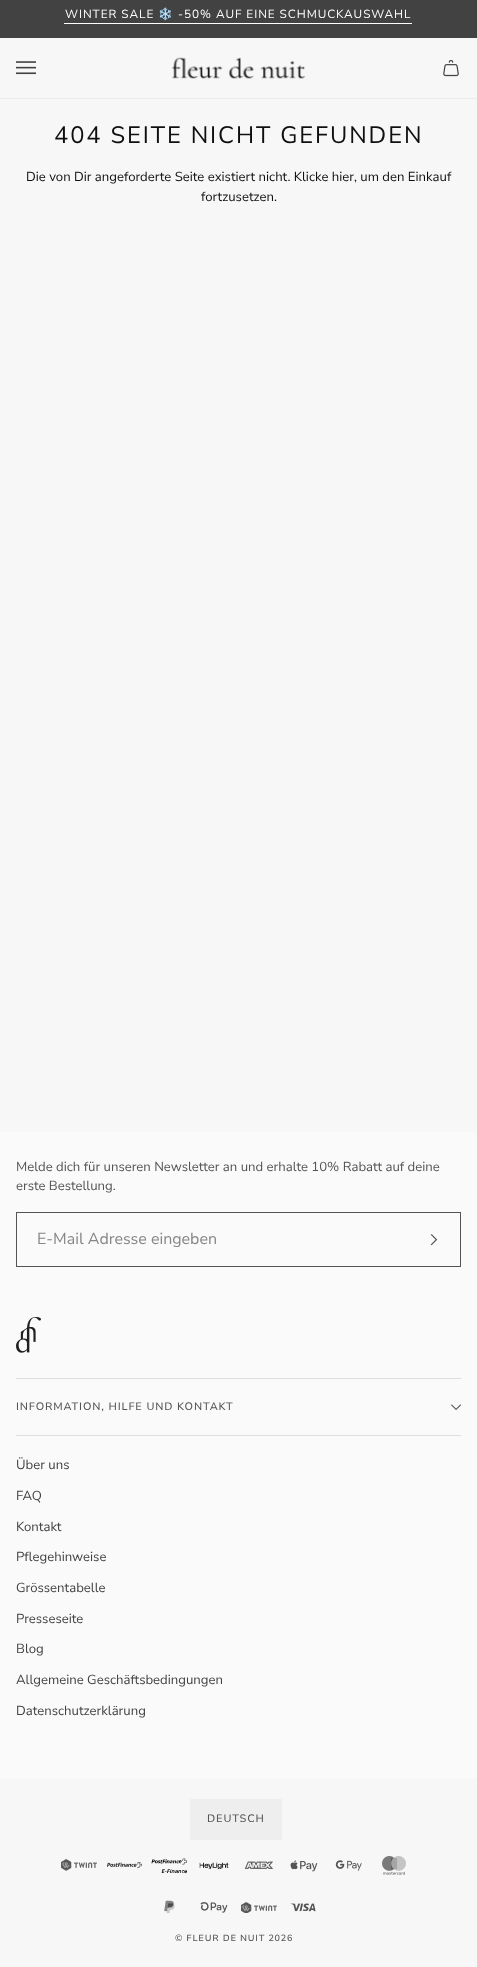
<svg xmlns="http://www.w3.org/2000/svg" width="477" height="1967">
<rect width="100%" height="100%" fill="#f7f7f7"/>
<rect width="477" height="38" fill="#424242"/>
<text x="65" y="18" style="font-family:Nunito Sans;font-size:11.8px;letter-spacing:0.95px;fill:#fff">WINTER SALE</text>
<text x="158" y="18" style="font-family:Noto Color Emoji;font-size:11.8px;letter-spacing:0.95px;fill:#fff">❄️</text>
<text x="178" y="18" style="font-family:Nunito Sans;font-size:11.8px;letter-spacing:0.95px;fill:#fff">-50% AUF EINE SCHMUCKAUSWAHL</text>
<rect x="64" y="23" width="348" height="1" fill="#fff"/>
<rect y="98" width="477" height="1" fill="#ebebeb"/>
<image x="16" y="61" width="20" height="14" href="media/1.png"/>
<image x="171" y="57" width="135" height="22" href="media/2.png"/>
<image x="443" y="59" width="16" height="18" href="media/3.png"/>
<text x="54" y="143" style="font-family:Nunito Sans;font-size:23.75px;letter-spacing:1.9px;fill:#0f0f0f">404 SEITE NICHT GEFUNDEN</text>
<text x="26" y="181" style="font-family:Nunito Sans;font-size:13.15px;fill:#0f0f0f">Die von Dir angeforderte Seite existiert nicht. Klicke hier</text>
<text x="354" y="181" style="font-family:Nunito Sans;font-size:13.15px;fill:#0f0f0f">, um den Einkauf</text>
<text x="201" y="201" style="font-family:Nunito Sans;font-size:13.15px;fill:#0f0f0f">fortzusetzen.</text>
<rect y="1132" width="477" height="646" fill="#fafafa"/>
<text x="16" y="1171" style="font-family:Nunito Sans;font-size:13.15px;fill:#545454">Melde dich für unseren Newsletter an und erhalte 10% Rabatt auf deine</text>
<text x="16" y="1190" style="font-family:Nunito Sans;font-size:13.15px;fill:#545454">erste Bestellung.</text>
<rect x="16.5" y="1212.5" width="444" height="54" fill="none" stroke="#545454"/>
<text x="37" y="1244" style="font-family:Nunito Sans;font-size:16px;fill:#868686">E-Mail Adresse eingeben</text>
<image x="430" y="1234" width="8" height="12" href="media/4.png"/>
<image x="16" y="1317" width="25" height="36" href="media/5.png"/>
<rect x="16" y="1378" width="445" height="1" fill="#dedede"/>
<rect x="16" y="1435" width="445" height="1" fill="#dedede"/>
<text x="16" y="1410" style="font-family:'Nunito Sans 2';font-size:10.8px;font-weight:500;letter-spacing:0.85px;fill:#545454">INFORMATION, HILFE UND KONTAKT</text>
<image x="451" y="1404" width="10" height="6" href="media/6.png"/>
<text x="16" y="1469" style="font-family:Nunito Sans;font-size:13.15px;fill:#424242">Über uns</text>
<text x="16" y="1500" style="font-family:Nunito Sans;font-size:13.15px;fill:#424242">FAQ</text>
<text x="16" y="1531" style="font-family:Nunito Sans;font-size:13.15px;fill:#424242">Kontakt</text>
<text x="16" y="1561" style="font-family:Nunito Sans;font-size:13.15px;fill:#424242">Pflegehinweise</text>
<text x="16" y="1592" style="font-family:Nunito Sans;font-size:13.15px;fill:#424242">Grössentabelle</text>
<text x="16" y="1623" style="font-family:Nunito Sans;font-size:13.15px;fill:#424242">Presseseite</text>
<text x="16" y="1653" style="font-family:Nunito Sans;font-size:13.15px;fill:#424242">Blog</text>
<text x="16" y="1684" style="font-family:Nunito Sans;font-size:13.15px;fill:#424242">Allgemeine Geschäftsbedingungen</text>
<text x="16" y="1715" style="font-family:Nunito Sans;font-size:13.15px;fill:#424242">Datenschutzerklärung</text>
<rect x="190" y="1799" width="92" height="41" fill="#eee"/>
<text x="207" y="1822" style="font-family:'Nunito Sans 2';font-size:10.8px;font-weight:500;letter-spacing:0.85px;fill:#545454">DEUTSCH</text>
<image x="61" y="1859" width="36" height="12" href="media/7.png"/>
<image x="107" y="1862" width="35" height="6" href="media/8.png"/>
<image x="151" y="1858" width="36" height="16" href="media/9.png"/>
<image x="199" y="1862" width="30" height="8" href="media/10.png"/>
<image x="244" y="1861" width="29" height="8" href="media/11.png"/>
<image x="290" y="1860" width="28" height="12" href="media/12.png"/>
<image x="335" y="1860" width="27" height="11" href="media/13.png"/>
<image x="382" y="1856" width="24" height="19" href="media/14.png"/>
<image x="164" y="1900" width="11" height="14" href="media/15.png"/>
<image x="200" y="1902" width="28" height="11" href="media/16.png"/>
<image x="241" y="1902" width="36" height="11" href="media/17.png"/>
<image x="290" y="1903" width="26" height="9" href="media/18.png"/>
<text x="175" y="1941" style="font-family:Nunito Sans;font-size:9px;font-weight:500;letter-spacing:0.75px;fill:#545454">© FLEUR DE NUIT 2026</text>
</svg>
